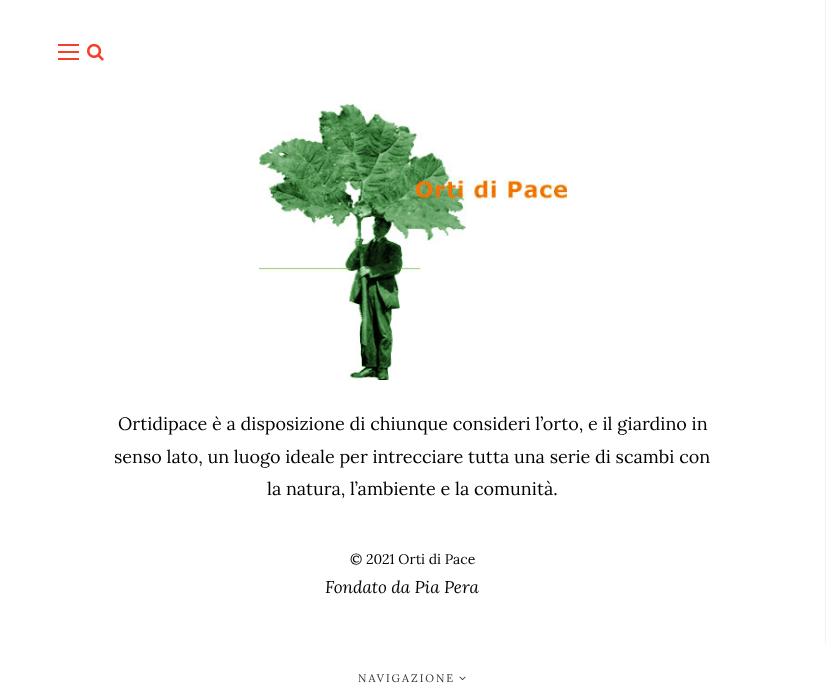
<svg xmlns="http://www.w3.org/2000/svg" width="826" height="692">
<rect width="100%" height="100%" fill="#fff"/>
<rect x="825" width="1" height="644" fill="#f2f2f2"/>
<rect x="58" y="51" width="21" height="2" fill="#f54029"/>
<rect x="58" y="44" width="21" height="2" fill="#f54029"/>
<rect x="58" y="58" width="21" height="2" fill="#f54029"/>
<image x="87" y="43" width="17" height="18" href="media/1.png"/>
<image x="259" y="103" width="308" height="277" href="media/2.png"/>
<text x="118" y="430" style="font-family:Lora;font-size:18px;fill:#000">Ortidipace è a disposizione di chiunque consideri l’orto, e il giardino in</text>
<text x="114" y="463" style="font-family:Lora;font-size:18px;fill:#000">senso lato, un luogo ideale per intrecciare tutta una serie di scambi con</text>
<text x="267" y="495" style="font-family:Lora;font-size:18px;fill:#000">la natura, l’ambiente e la comunità.</text>
<text x="350" y="564" style="font-family:Lora;font-size:14px;fill:#000">© 2021 Orti di Pace</text>
<text x="325" y="593" style="font-family:Lora;font-size:17px;font-style:italic;fill:#000">Fondato da Pia Pera</text>
<text x="358" y="682" style="font-family:Lora;font-size:11px;letter-spacing:2px;fill:#333">NAVIGAZIONE</text>
<image x="459" y="676" width="7" height="5" href="media/3.png"/>
</svg>
